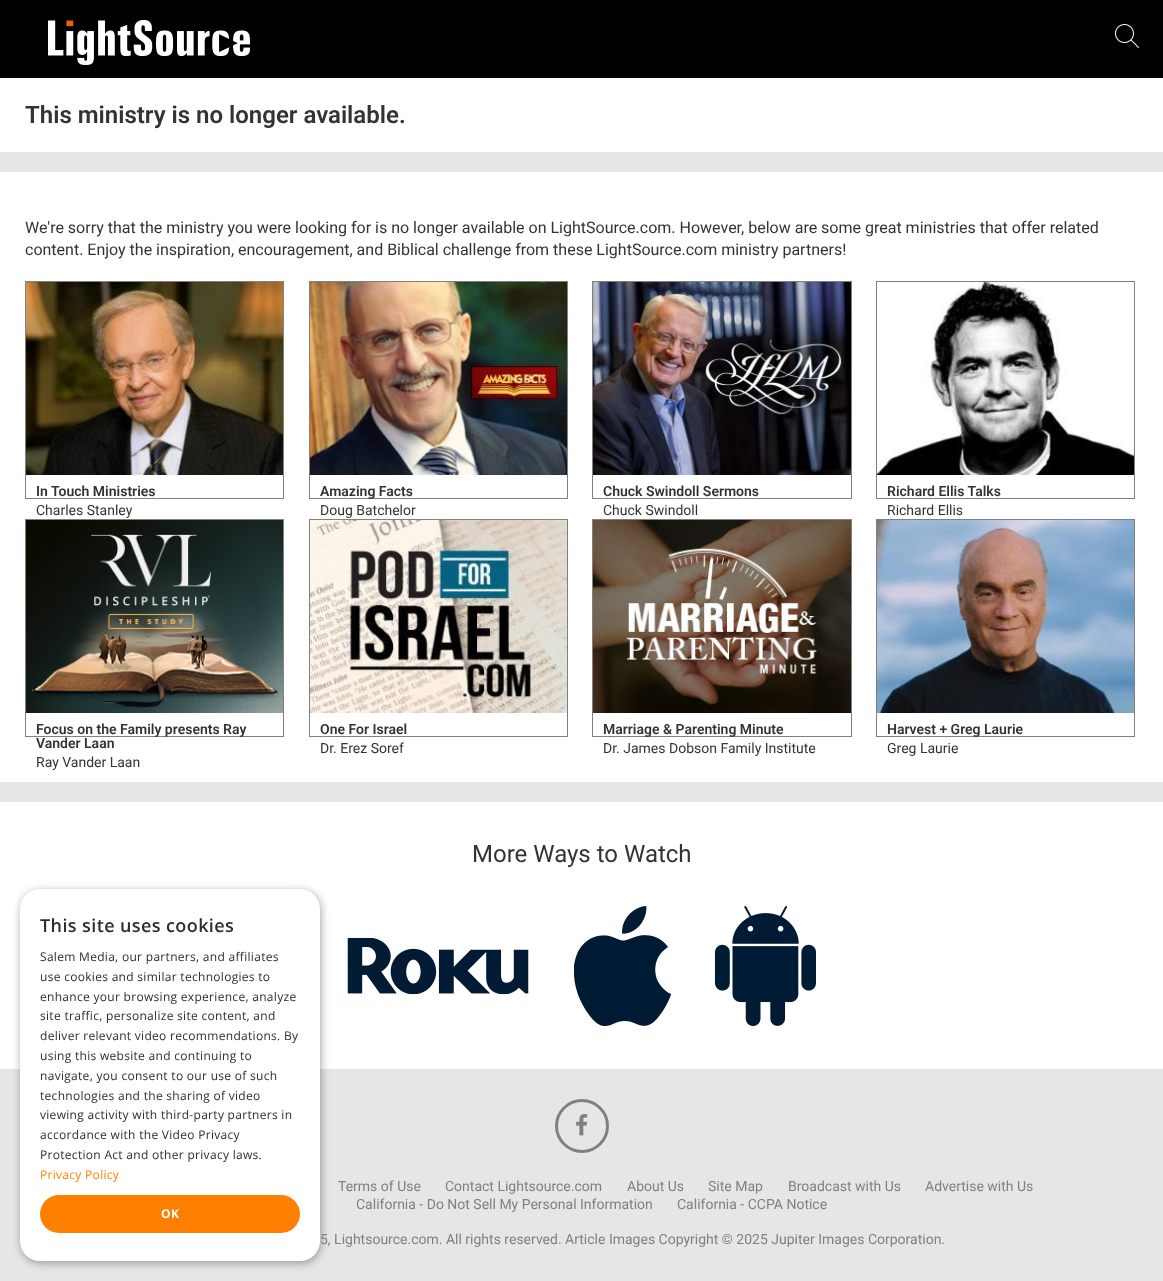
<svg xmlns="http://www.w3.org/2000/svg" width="1163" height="1281">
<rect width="100%" height="100%" fill="#e6e6e6"/>
<rect width="1163" height="78" fill="#000"/>
<image x="48" y="20" width="202" height="45" href="media/1.png"/>
<image x="1115" y="24" width="24" height="24" href="media/2.png"/>
<rect y="78" width="1163" height="74" fill="#fff"/>
<text x="25" y="123" style="font-family:Roboto;font-size:24px;font-weight:600;fill:#333">This ministry is no longer available.</text>
<rect y="172" width="1163" height="610" fill="#fff"/>
<text x="25" y="233" style="font-family:Roboto;font-size:16px;fill:#333">We're sorry that the ministry you were looking for is no longer available on LightSource.com. However, below are some great ministries that offer related</text>
<text x="25" y="255" style="font-family:Roboto;font-size:16px;fill:#333">content. Enjoy the inspiration, encouragement, and Biblical challenge from these LightSource.com ministry partners!</text>
<rect x="25.5" y="281.5" width="258" height="217" fill="none" stroke="#808080"/>
<image x="26" y="282" width="257" height="193" href="media/3.png"/>
<text x="36" y="496" style="font-family:Roboto;font-size:14px;font-weight:600;fill:#333">In Touch Ministries</text>
<text x="36" y="515" style="font-family:Roboto;font-size:14px;fill:#333">Charles Stanley</text>
<rect x="309.5" y="281.5" width="258" height="217" fill="none" stroke="#808080"/>
<image x="310" y="282" width="257" height="193" href="media/4.png"/>
<text x="320" y="496" style="font-family:Roboto;font-size:14px;font-weight:600;fill:#333">Amazing Facts</text>
<text x="320" y="515" style="font-family:Roboto;font-size:14px;fill:#333">Doug Batchelor</text>
<rect x="592.5" y="281.5" width="259" height="217" fill="none" stroke="#808080"/>
<image x="593" y="282" width="258" height="193" href="media/5.png"/>
<text x="603" y="496" style="font-family:Roboto;font-size:14px;font-weight:600;fill:#333">Chuck Swindoll Sermons</text>
<text x="603" y="515" style="font-family:Roboto;font-size:14px;fill:#333">Chuck Swindoll</text>
<rect x="876.5" y="281.5" width="258" height="217" fill="none" stroke="#808080"/>
<image x="877" y="282" width="257" height="193" href="media/6.png"/>
<text x="887" y="496" style="font-family:Roboto;font-size:14px;font-weight:600;fill:#333">Richard Ellis Talks</text>
<text x="887" y="515" style="font-family:Roboto;font-size:14px;fill:#333">Richard Ellis</text>
<rect x="25.5" y="519.5" width="258" height="217" fill="none" stroke="#808080"/>
<image x="26" y="520" width="257" height="193" href="media/7.png"/>
<text x="36" y="734" style="font-family:Roboto;font-size:14px;font-weight:600;fill:#333">Focus on the Family presents Ray</text>
<text x="36" y="748" style="font-family:Roboto;font-size:14px;font-weight:600;fill:#333">Vander Laan</text>
<text x="36" y="767" style="font-family:Roboto;font-size:14px;fill:#333">Ray Vander Laan</text>
<rect x="309.5" y="519.5" width="258" height="217" fill="none" stroke="#808080"/>
<image x="310" y="520" width="257" height="193" href="media/8.png"/>
<text x="320" y="734" style="font-family:Roboto;font-size:14px;font-weight:600;fill:#333">One For Israel</text>
<text x="320" y="753" style="font-family:Roboto;font-size:14px;fill:#333">Dr. Erez Soref</text>
<rect x="592.5" y="519.5" width="259" height="217" fill="none" stroke="#808080"/>
<image x="593" y="520" width="258" height="193" href="media/9.png"/>
<text x="603" y="734" style="font-family:Roboto;font-size:14px;font-weight:600;fill:#333">Marriage &amp; Parenting Minute</text>
<text x="603" y="753" style="font-family:Roboto;font-size:14px;fill:#333">Dr. James Dobson Family Institute</text>
<rect x="876.5" y="519.5" width="258" height="217" fill="none" stroke="#808080"/>
<image x="877" y="520" width="257" height="193" href="media/10.png"/>
<text x="887" y="734" style="font-family:Roboto;font-size:14px;font-weight:600;fill:#333">Harvest + Greg Laurie</text>
<text x="887" y="753" style="font-family:Roboto;font-size:14px;fill:#333">Greg Laurie</text>
<rect y="802" width="1163" height="267" fill="#fff"/>
<rect x="21" y="891" width="300" height="372" rx="20" fill="#00000059" filter="blur(4px)"/>
<rect x="20" y="889" width="300" height="372" rx="20" fill="#fff"/>
<text x="40" y="932" style="font-family:Open Sans;font-size:18px;font-weight:600;letter-spacing:0.4px;fill:#2d2d2d">This site uses cookies</text>
<text x="40" y="961" style="font-family:Open Sans;font-size:12px;letter-spacing:0.3px;fill:#2d2d2d">Salem Media, our partners, and affiliates</text>
<text x="40" y="981" style="font-family:Open Sans;font-size:12px;letter-spacing:0.3px;fill:#2d2d2d">use cookies and similar technologies to</text>
<text x="40" y="1001" style="font-family:Open Sans;font-size:12px;letter-spacing:0.3px;fill:#2d2d2d">enhance your browsing experience, analyze</text>
<text x="40" y="1020" style="font-family:Open Sans;font-size:12px;letter-spacing:0.3px;fill:#2d2d2d">site traffic, personalize site content, and</text>
<text x="40" y="1040" style="font-family:Open Sans;font-size:12px;letter-spacing:0.3px;fill:#2d2d2d">deliver relevant video recommendations. By</text>
<text x="40" y="1060" style="font-family:Open Sans;font-size:12px;letter-spacing:0.3px;fill:#2d2d2d">using this website and continuing to</text>
<text x="40" y="1080" style="font-family:Open Sans;font-size:12px;letter-spacing:0.3px;fill:#2d2d2d">navigate, you consent to our use of such</text>
<text x="40" y="1100" style="font-family:Open Sans;font-size:12px;letter-spacing:0.3px;fill:#2d2d2d">technologies and the sharing of video</text>
<text x="40" y="1119" style="font-family:Open Sans;font-size:12px;letter-spacing:0.3px;fill:#2d2d2d">viewing activity with third-party partners in</text>
<text x="40" y="1139" style="font-family:Open Sans;font-size:12px;letter-spacing:0.3px;fill:#2d2d2d">accordance with the Video Privacy</text>
<text x="40" y="1159" style="font-family:Open Sans;font-size:12px;letter-spacing:0.3px;fill:#2d2d2d">Protection Act and other privacy laws.</text>
<text x="40" y="1179" style="font-family:Open Sans;font-size:12px;letter-spacing:0.3px;fill:#ff8000">Privacy Policy</text>
<rect x="40" y="1195" width="260" height="38" rx="19" fill="#ff8000"/>
<text x="161" y="1218" style="font-family:Open Sans;font-size:12px;font-weight:bold;letter-spacing:0.4px;fill:#fff">OK</text>
<text x="472" y="862" style="font-family:Roboto;font-size:24px;fill:#333">More Ways to Watch</text>
<image x="347" y="937" width="182" height="58" href="media/11.png"/>
<image x="574" y="906" width="97" height="120" href="media/12.png"/>
<image x="715" y="906" width="101" height="120" href="media/13.png"/>
<circle cx="582" cy="1126" r="25.5" fill="none" stroke="#808080" stroke-width="3"/>
<image x="576" y="1114" width="12" height="22" href="media/14.png"/>
<text x="338" y="1191" style="font-family:Roboto;font-size:14px;fill:#808080">Terms of Use</text>
<text x="445" y="1191" style="font-family:Roboto;font-size:14px;fill:#808080">Contact Lightsource.com</text>
<text x="627" y="1191" style="font-family:Roboto;font-size:14px;fill:#808080">About Us</text>
<text x="708" y="1191" style="font-family:Roboto;font-size:14px;fill:#808080">Site Map</text>
<text x="788" y="1191" style="font-family:Roboto;font-size:14px;fill:#808080">Broadcast with Us</text>
<text x="925" y="1191" style="font-family:Roboto;font-size:14px;fill:#808080">Advertise with Us</text>
<text x="356" y="1209" style="font-family:Roboto;font-size:14px;fill:#808080">California - Do Not Sell My Personal Information</text>
<text x="677" y="1209" style="font-family:Roboto;font-size:14px;fill:#808080">California - CCPA Notice</text>
<text x="320" y="1244" style="font-family:Roboto;font-size:14px;fill:#808080">5, Lightsource.com. All rights reserved. Article Images Copyright © 2025 Jupiter Images Corporation.</text>
</svg>
